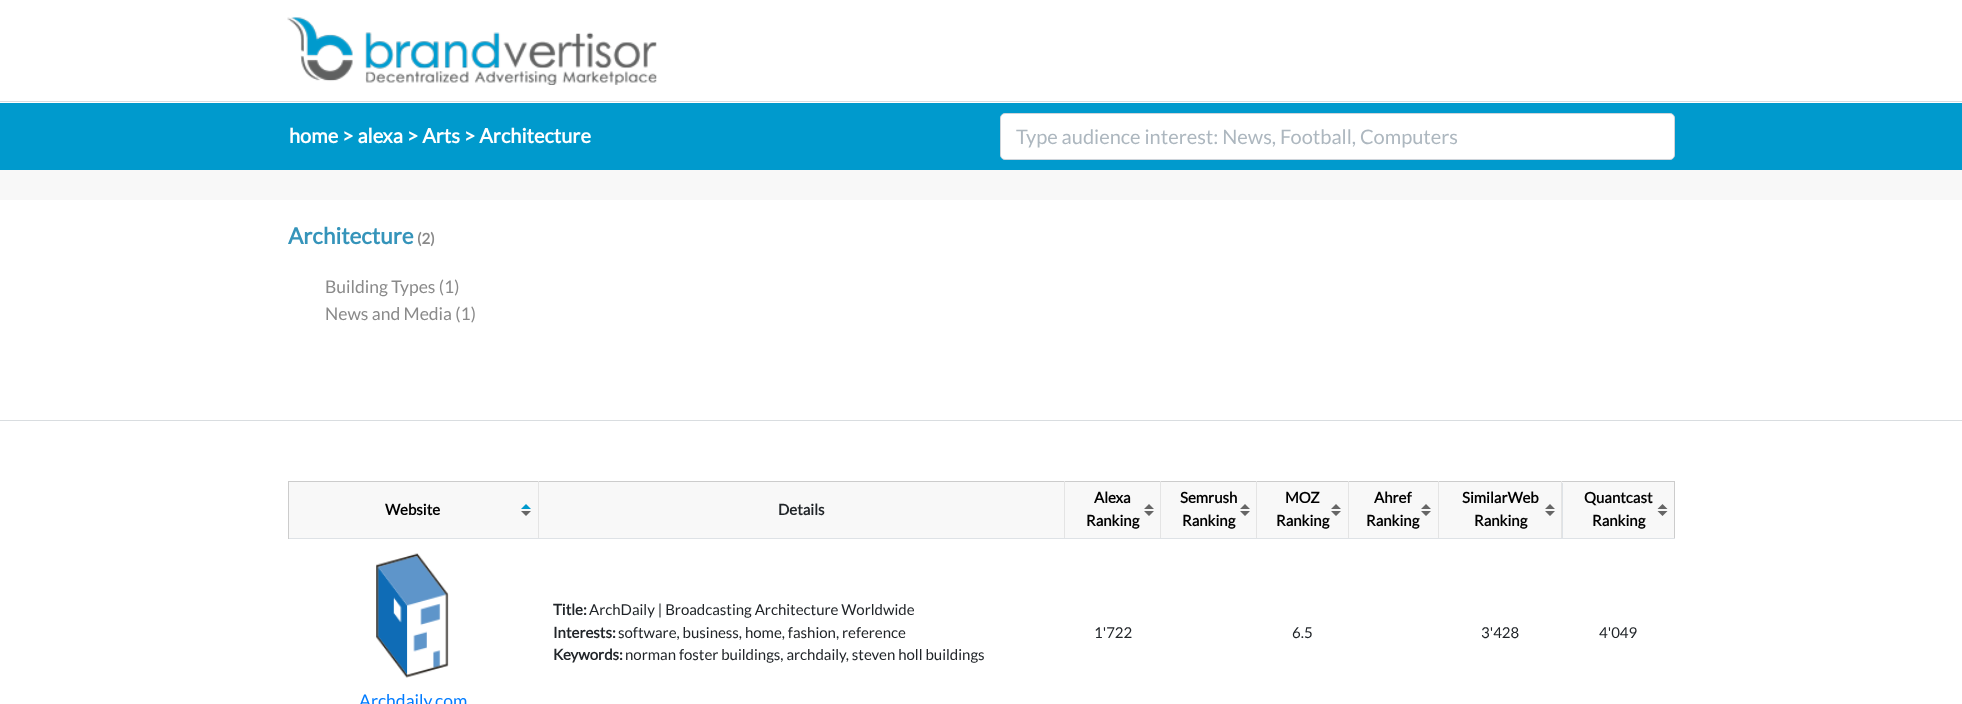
<svg xmlns="http://www.w3.org/2000/svg" width="1962" height="704">
<rect width="100%" height="100%" fill="#f8f8f8"/>
<rect width="1962" height="103" fill="#fff"/>
<rect y="101" width="1962" height="1" fill="#d9dde0"/>
<image x="287" y="16" width="370" height="69" href="media/1.png"/>
<rect y="103" width="1962" height="67" fill="#009acd"/>
<text x="289" y="143" style="font-family:Lato;font-size:20px;font-weight:bold;fill:#fff">home &gt; alexa &gt; Arts &gt; Architecture</text>
<rect x="1000.5" y="113.5" width="674" height="46" rx="4.5" fill="#fff" stroke="#ced4da"/>
<text x="1016" y="144" style="font-family:Lato;font-size:20px;fill:#adb7bf">Type audience interest: News, Football, Computers</text>
<rect y="200" width="1962" height="220" fill="#fff"/>
<rect y="420" width="1962" height="1" fill="#d9dde0"/>
<text x="288" y="244" style="font-family:Lato;font-size:22.5px;font-weight:bold;fill:#3594ba">Architecture</text>
<text x="417" y="244" style="font-family:Lato;font-size:15px;font-weight:bold;fill:#8a8a8a">(2)</text>
<text x="325" y="293" style="font-family:Lato;font-size:17.5px;fill:#8a8a8a">Building Types (1)</text>
<text x="325" y="320" style="font-family:Lato;font-size:17.5px;fill:#8a8a8a">News and Media (1)</text>
<rect y="421" width="1962" height="283" fill="#fff"/>
<rect x="289" y="482" width="1385" height="56" fill="#f8f8f8"/>
<rect x="288" y="481" width="1387" height="1" fill="#ccc"/>
<rect x="538" y="481" width="1" height="58" fill="#e4e4e4"/>
<rect x="288" y="481" width="1" height="58" fill="#ccc"/>
<path d="M289 538v1h249v-56v55z" fill="#dee2e6"/>
<text x="385" y="515" style="font-family:Lato;font-size:15px;font-weight:bold;fill:#000">Website</text>
<path d="M531 509h-10l5-5z" fill="#009acd"/>
<path d="M521 511h10l-5 5z" fill="#666"/>
<rect x="1064" y="481" width="1" height="58" fill="#e4e4e4"/>
<rect x="538" y="538" width="622" height="1" fill="#dee2e6"/>
<text x="778" y="515" style="font-family:Lato;font-size:15px;font-weight:bold;fill:#212529">Details</text>
<rect x="1160" y="481" width="1" height="58" fill="#e4e4e4"/>
<text x="1094" y="503" style="font-family:Lato;font-size:15px;font-weight:bold;fill:#000">Alexa</text>
<path d="M1154 509h-10l5-5zm-10 2h10l-5 5z" fill="#666"/>
<text x="1086" y="526" style="font-family:Lato;font-size:15px;font-weight:bold;fill:#000">Ranking</text>
<rect x="1256" y="481" width="1" height="58" fill="#e4e4e4"/>
<path d="M1160 538v1h98v-56v55z" fill="#dee2e6"/>
<text x="1180" y="503" style="font-family:Lato;font-size:15px;font-weight:bold;fill:#000">Semrush</text>
<path d="M1250 509h-10l5-5zm-10 2h10l-5 5z" fill="#666"/>
<text x="1182" y="526" style="font-family:Lato;font-size:15px;font-weight:bold;fill:#000">Ranking</text>
<rect x="1348" y="481" width="1" height="58" fill="#e4e4e4"/>
<path d="M1258 538v1h90v-56v55z" fill="#dee2e6"/>
<text x="1285" y="503" style="font-family:Lato;font-size:15px;font-weight:bold;fill:#000">MOZ</text>
<path d="M1341 509h-10l5-5zm-10 2h10l-5 5z" fill="#666"/>
<text x="1276" y="526" style="font-family:Lato;font-size:15px;font-weight:bold;fill:#000">Ranking</text>
<rect x="1438" y="481" width="1" height="58" fill="#e4e4e4"/>
<path d="M1348 538v1h91v-56v55z" fill="#dee2e6"/>
<text x="1374" y="503" style="font-family:Lato;font-size:15px;font-weight:bold;fill:#000">Ahref</text>
<path d="M1431 509h-10l5-5zm-10 2h10l-5 5z" fill="#666"/>
<text x="1366" y="526" style="font-family:Lato;font-size:15px;font-weight:bold;fill:#000">Ranking</text>
<rect x="1561" y="481" width="1" height="58" fill="#e4e4e4"/>
<path d="M1439 538v1h124v-56h-1v55z" fill="#dee2e6"/>
<text x="1462" y="503" style="font-family:Lato;font-size:15px;font-weight:bold;fill:#000">SimilarWeb</text>
<path d="M1555 509h-10l5-5zm-10 2h10l-5 5z" fill="#666"/>
<text x="1474" y="526" style="font-family:Lato;font-size:15px;font-weight:bold;fill:#000">Ranking</text>
<rect x="1674" y="481" width="1" height="58" fill="#ccc"/>
<rect x="1563" y="538" width="112" height="1" fill="#dee2e6"/>
<text x="1584" y="503" style="font-family:Lato;font-size:15px;font-weight:bold;fill:#000">Quantcast</text>
<path d="M1667.5 509h-10l5-5zm-10 2h10l-5 5z" fill="#666"/>
<text x="1592" y="526" style="font-family:Lato;font-size:15px;font-weight:bold;fill:#000">Ranking</text>
<text x="553" y="615" style="font-family:Lato;font-size:15px;font-weight:bold;fill:#212529">Title:</text>
<text x="589" y="615" style="font-family:Lato;font-size:15px;fill:#212529">ArchDaily | Broadcasting Architecture Worldwide</text>
<text x="553" y="638" style="font-family:Lato;font-size:15px;font-weight:bold;fill:#212529">Interests:</text>
<text x="618" y="638" style="font-family:Lato;font-size:15px;fill:#212529">software, business, home, fashion, reference</text>
<text x="553" y="660" style="font-family:Lato;font-size:15px;font-weight:bold;fill:#212529">Keywords:</text>
<text x="625" y="660" style="font-family:Lato;font-size:15px;fill:#212529">norman foster buildings, archdaily, steven holl buildings</text>
<text x="1094" y="638" style="font-family:Lato;font-size:15px;fill:#212529">1'722</text>
<text x="1292" y="638" style="font-family:Lato;font-size:15px;fill:#212529">6.5</text>
<text x="1481" y="638" style="font-family:Lato;font-size:15px;fill:#212529">3'428</text>
<text x="1599" y="638" style="font-family:Lato;font-size:15px;fill:#212529">4'049</text>
<image x="376" y="553" width="73" height="125" href="media/2.png"/>
<text x="359" y="707" style="font-family:Lato;font-size:17.5px;fill:#007bff">Archdaily.com</text>
</svg>
